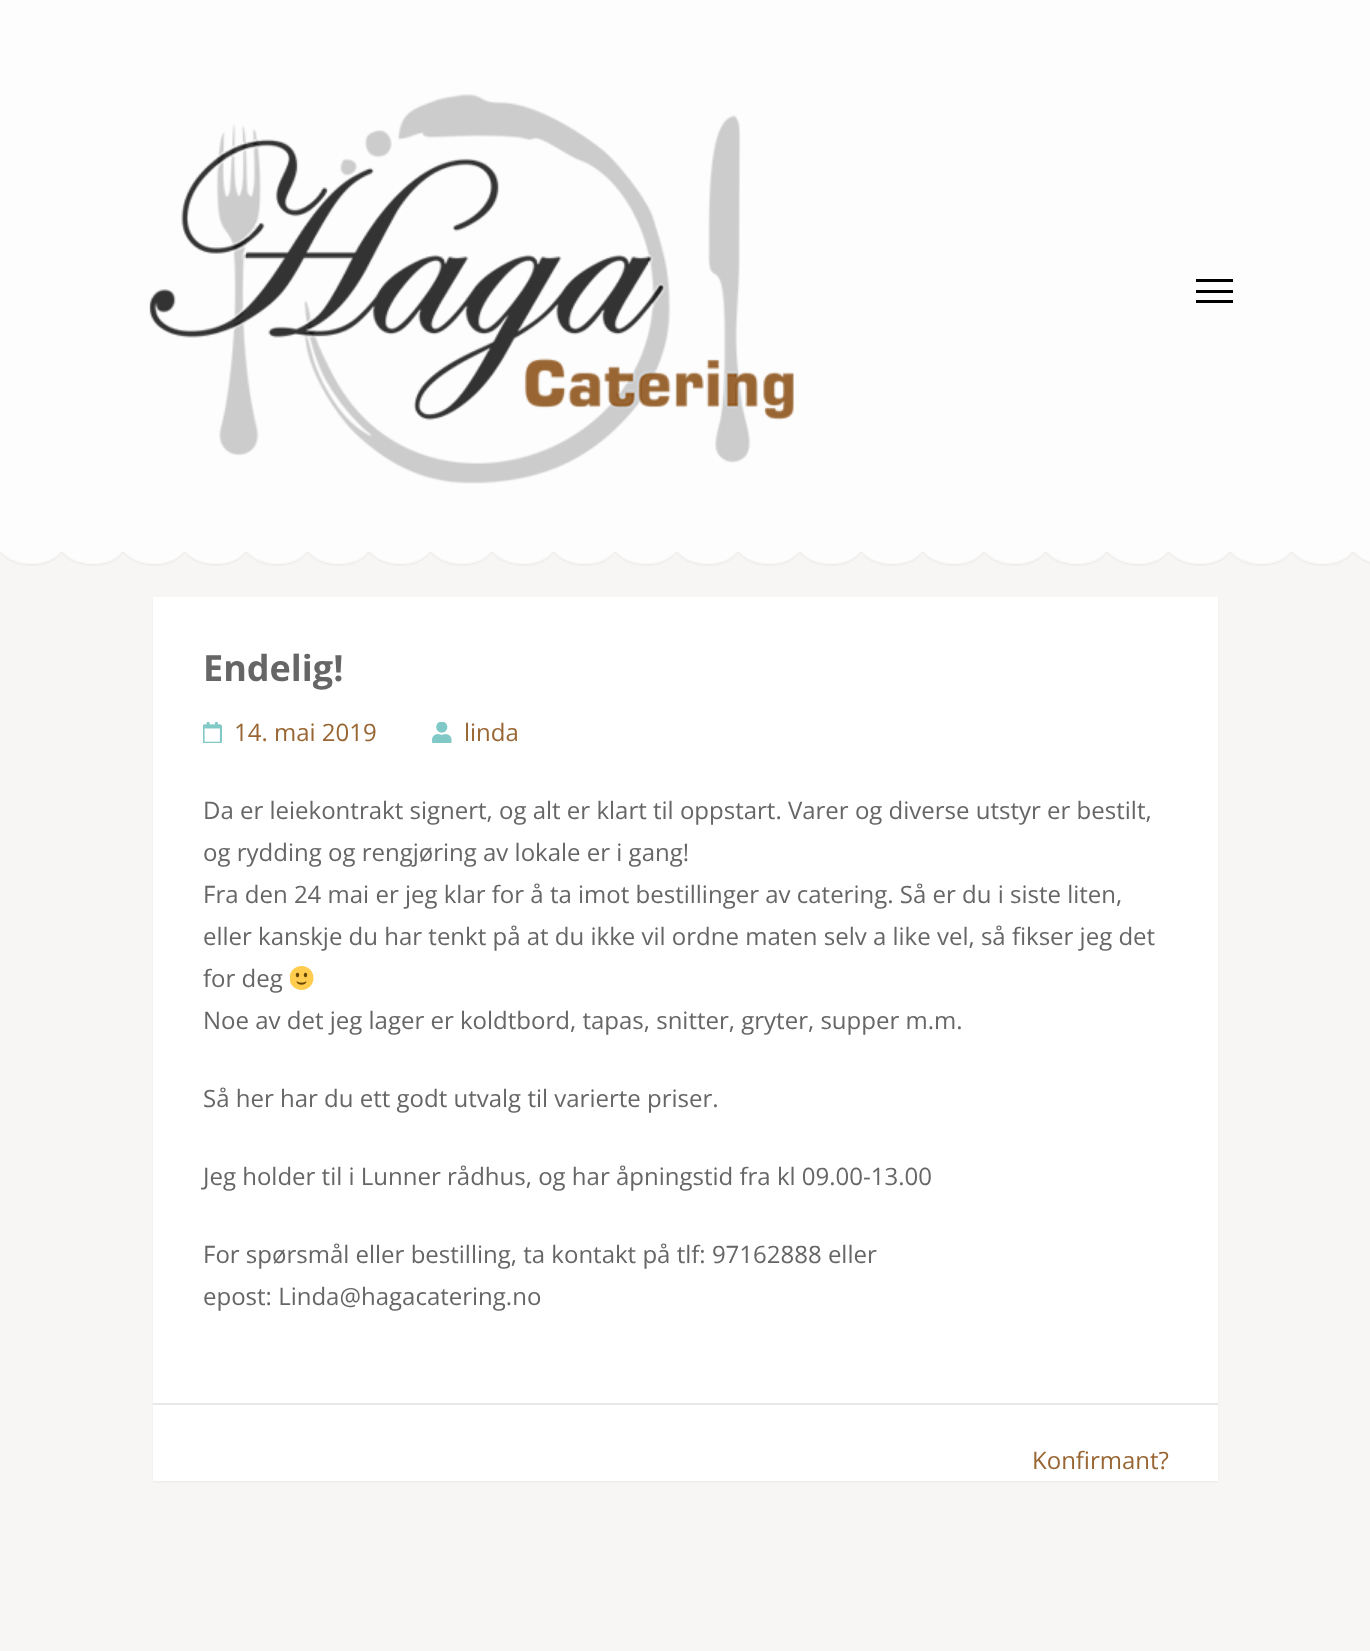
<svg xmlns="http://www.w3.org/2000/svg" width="1370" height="1651">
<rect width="100%" height="100%" fill="#f7f6f4"/>
<rect width="1370" height="552" fill="#fdfdfd"/>
<image x="149" y="94" width="645" height="390" href="media/1.png"/>
<rect x="1196" y="279" width="37" height="3" fill="#000"/>
<rect x="1196" y="290" width="37" height="3" fill="#000"/>
<rect x="1196" y="300" width="37" height="3" fill="#000"/>
<image x="0" y="552" width="1370" height="14" href="media/2.png"/>
<rect x="153" y="599" width="1065" height="883" fill="#0000000d" filter="blur(1px)"/>
<rect x="153" y="597" width="1065" height="884" fill="#fff"/>
<rect x="153" y="1403" width="1065" height="2" fill="#e8e8e8"/>
<text x="203" y="681" style="font-family:Open Sans;font-size:36px;font-weight:bold;fill:#666">Endelig!</text>
<image x="203" y="722" width="19" height="21" href="media/3.png"/>
<text x="234" y="741" style="font-family:Open Sans;font-size:24px;fill:#963">14. mai 2019</text>
<image x="432" y="722" width="20" height="21" href="media/4.png"/>
<text x="464" y="741" style="font-family:Open Sans;font-size:24px;fill:#963">linda</text>
<text x="203" y="819" style="font-family:Open Sans;font-size:24px;fill:#666">Da er leiekontrakt signert, og alt er klart til oppstart. Varer og diverse utstyr er bestilt,</text>
<text x="203" y="861" style="font-family:Open Sans;font-size:24px;fill:#666">og rydding og rengjøring av lokale er i gang!</text>
<text x="203" y="903" style="font-family:Open Sans;font-size:24px;fill:#666">Fra den 24 mai er jeg klar for å ta imot bestillinger av catering. Så er du i siste liten,</text>
<text x="203" y="945" style="font-family:Open Sans;font-size:24px;fill:#666">eller kanskje du har tenkt på at du ikke vil ordne maten selv a like vel, så fikser jeg det</text>
<text x="203" y="987" style="font-family:Open Sans;font-size:24px;fill:#666">for deg</text>
<image x="290" y="966" width="24" height="24" href="media/5.png"/>
<text x="203" y="1029" style="font-family:Open Sans;font-size:24px;fill:#666">Noe av det jeg lager er koldtbord, tapas, snitter, gryter, supper m.m.</text>
<text x="203" y="1107" style="font-family:Open Sans;font-size:24px;fill:#666">Så her har du ett godt utvalg til varierte priser.</text>
<text x="203" y="1185" style="font-family:Open Sans;font-size:24px;fill:#666">Jeg holder til i Lunner rådhus, og har åpningstid fra kl 09.00-13.00</text>
<text x="203" y="1263" style="font-family:Open Sans;font-size:24px;fill:#666">For spørsmål eller bestilling, ta kontakt på tlf: 97162888 eller</text>
<text x="203" y="1305" style="font-family:Open Sans;font-size:24px;fill:#666">epost: Linda@hagacatering.no</text>
<text x="1032" y="1469" style="font-family:Open Sans;font-size:24px;fill:#963">Konfirmant?</text>
</svg>
